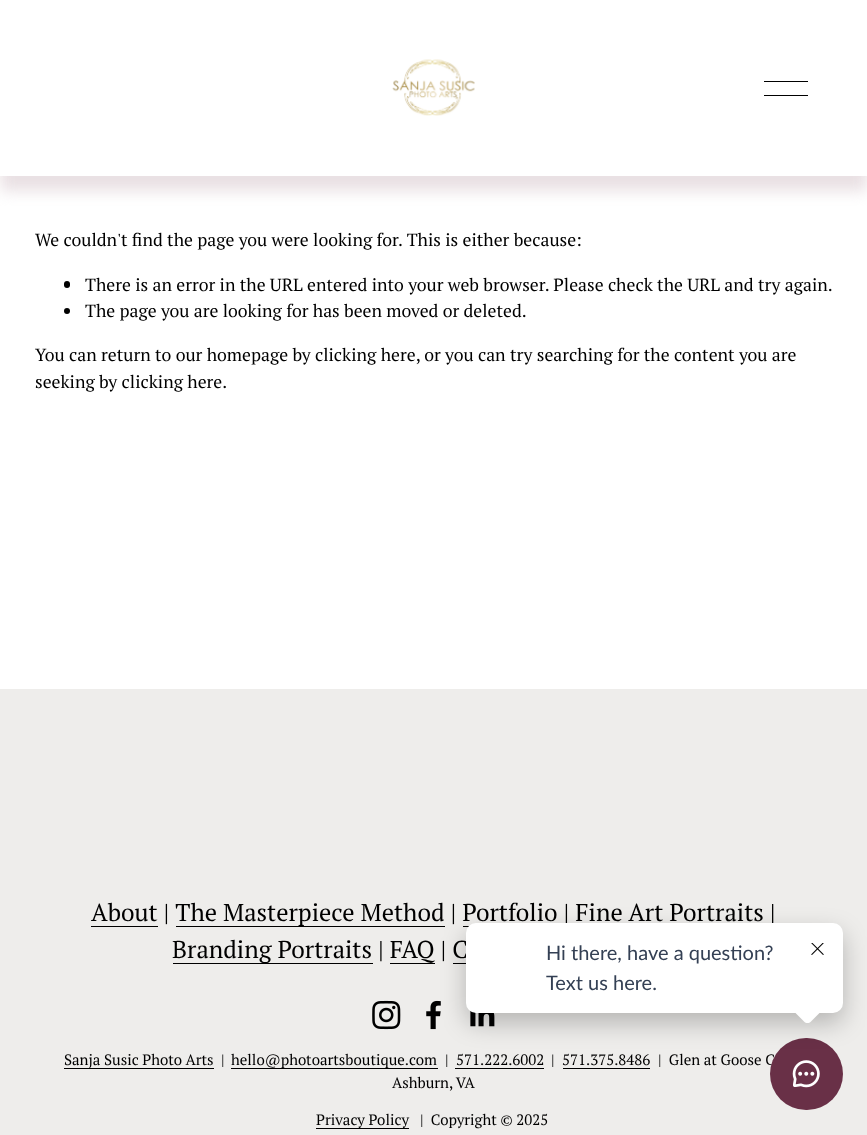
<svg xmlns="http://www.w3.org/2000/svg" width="867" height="1135">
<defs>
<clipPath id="clip1"><rect x="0" y="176" width="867" height="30"/></clipPath>
</defs>
<rect width="100%" height="100%" fill="#fff"/>
<g clip-path="url(#clip1)">
<rect y="15" width="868" height="176" fill="#e9e0e3" filter="blur(7.5px)"/>
</g>
<image x="392" y="59" width="83" height="57" href="media/1.png"/>
<rect x="764" y="81" width="44" height="1" fill="#000"/>
<rect x="764" y="95" width="44" height="1" fill="#000"/>
<text x="35" y="246" style="font-family:PT Serif;font-size:17.7px;fill:#000">We couldn't find the page you were looking for. This is either because:</text>
<rect x="64" y="281" width="6" height="7" rx="3" fill="#000"/>
<text x="85" y="291" style="font-family:PT Serif;font-size:17.7px;fill:#000">There is an error in the URL entered into your web browser. Please check the URL and try again.</text>
<circle cx="67" cy="311" r="3" fill="#000"/>
<text x="85" y="317" style="font-family:PT Serif;font-size:17.7px;fill:#000">The page you are looking for has been moved or deleted.</text>
<text x="35" y="361" style="font-family:PT Serif;font-size:17.7px;fill:#000">You can return to our homepage by clicking here, or you can try searching for the content you are</text>
<text x="35" y="388" style="font-family:PT Serif;font-size:17.7px;fill:#000">seeking by clicking here.</text>
<rect y="689" width="867" height="446" fill="#eeedeb"/>
<text x="91" y="921" style="font-family:PT Serif;font-size:24.45px;fill:#000">About | The Masterpiece Method | Portfolio | Fine Art Portraits |</text>
<rect x="91" y="926" width="67" height="1" fill="#000"/>
<rect x="176" y="926" width="269" height="1" fill="#000"/>
<rect x="463" y="926" width="6" height="1" fill="#000"/>
<rect x="173" y="963" width="200" height="1" fill="#000"/>
<text x="172" y="958" style="font-family:PT Serif;font-size:24.45px;fill:#000">Branding Portraits | FAQ | C</text>
<rect x="390" y="963" width="45" height="1" fill="#000"/>
<rect x="453" y="963" width="13" height="1" fill="#000"/>
<image x="372" y="1000" width="29" height="30" href="media/2.png"/>
<image x="426" y="1000" width="15" height="30" href="media/3.png"/>
<image x="470" y="1011" width="25" height="16" href="media/4.png"/>
<rect x="64" y="1068" width="150" height="1" fill="#000"/>
<text x="64" y="1065" style="font-family:PT Serif;font-size:15px;fill:#000">Sanja Susic Photo Arts</text>
<text x="221" y="1065" style="font-family:PT Serif;font-size:15px;fill:#000">|</text>
<text x="231" y="1065" style="font-family:PT Serif;font-size:15px;fill:#000">hello@photoartsboutique.com</text>
<rect x="231" y="1068" width="207" height="1" fill="#000"/>
<text x="445" y="1065" style="font-family:PT Serif;font-size:15px;fill:#000">|</text>
<text x="456" y="1065" style="font-family:PT Serif;font-size:15px;fill:#000">571.222.6002</text>
<rect x="455" y="1068" width="89" height="1" fill="#000"/>
<text x="551" y="1065" style="font-family:PT Serif;font-size:15px;fill:#000">|</text>
<text x="562" y="1065" style="font-family:PT Serif;font-size:15px;fill:#000">571.375.8486</text>
<rect x="563" y="1068" width="87" height="1" fill="#000"/>
<text x="658" y="1065" style="font-family:PT Serif;font-size:15px;fill:#000" xml:space="preserve">|  Glen at Goose C</text>
<text x="392" y="1088" style="font-family:PT Serif;font-size:15px;fill:#000">Ashburn, VA</text>
<rect x="316" y="1128" width="93" height="1" fill="#000"/>
<text x="316" y="1125" style="font-family:PT Serif;font-size:15px;fill:#000">Privacy Policy</text>
<text x="420" y="1125" style="font-family:PT Serif;font-size:15px;fill:#000" xml:space="preserve">|  Copyright © 2025</text>
<rect x="770" y="1038" width="73" height="72" rx="36" fill="#693047"/>
<image x="792" y="1060" width="28" height="28" href="media/6.png"/>
<rect x="466" y="933" width="377" height="90" rx="10" fill="#0000003d" filter="blur(12.5px)"/>
<rect x="466" y="923" width="377" height="90" rx="10" fill="#fff"/>
<text x="546" y="960" style="font-family:Lato;font-size:20px;fill:#344054">Hi there, have a question?</text>
<text x="546" y="990" style="font-family:Lato;font-size:20px;fill:#344054">Text us here.</text>
<path d="M811 993.5l10.5 10.5c2 2 2 5 0 7l-10.5 10.5c-2 2-5 2-7 0l-10.5-10.5c-2-2-2-5 0-7l10.5-10.5c2-2 5-2 7 0z" fill="#fff"/>
<image x="811" y="943" width="13" height="12" href="media/5.png"/>
</svg>
